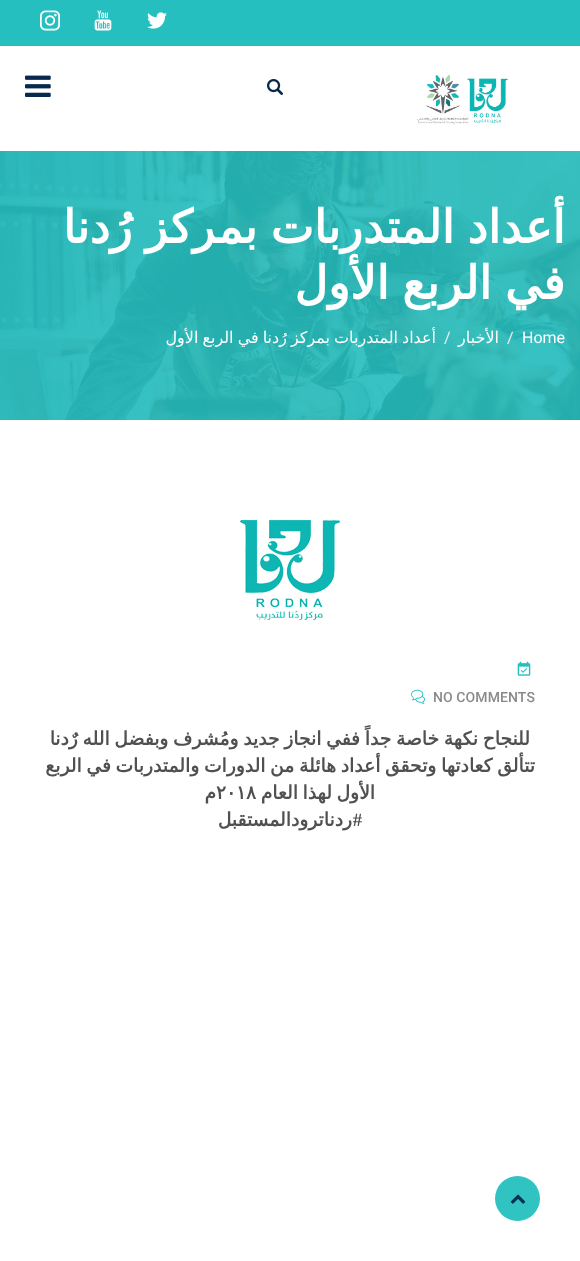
<svg xmlns="http://www.w3.org/2000/svg" width="580" height="1261">
<rect width="100%" height="100%" fill="#fff"/>
<rect width="580" height="46" fill="#26bfbf"/>
<image x="147" y="12" width="20" height="17" href="media/1.png"/>
<image x="94" y="10" width="18" height="21" href="media/2.png"/>
<image x="40" y="10" width="20" height="21" href="media/3.png"/>
<image x="417" y="75" width="91" height="49" href="media/4.png"/>
<image x="267" y="79" width="16" height="16" href="media/5.png"/>
<image x="25" y="75" width="26" height="22" href="media/6.png"/>
<image x="0" y="151" width="580" height="269" href="media/7.png"/>
<text x="565" y="243" word-spacing="-1.5" style="font-family:DejaVu Sans;font-size:46px;font-weight:bold;direction:rtl;fill:#fff">أعداد المتدربات بمركز رُدنا</text>
<text x="565" y="299" word-spacing="-1.5" style="font-family:DejaVu Sans;font-size:46px;font-weight:bold;direction:rtl;fill:#fff">في الربع الأول</text>
<text x="522" y="343" style="font-family:Roboto;font-size:16px;fill:#fff">Home</text>
<text x="507" y="343" style="font-family:Roboto;font-size:16px;fill:#edf0f2">/</text>
<text x="499" y="343" style="font-family:DejaVu Sans;font-size:16px;direction:rtl;fill:#fff">الأخبار</text>
<text x="444" y="343" style="font-family:Roboto;font-size:16px;fill:#edf0f2">/</text>
<text x="436" y="343" word-spacing="-1" style="font-family:DejaVu Sans;font-size:16px;direction:rtl;fill:#fff">أعداد المتدربات بمركز رُدنا في الربع الأول</text>
<image x="240" y="520" width="100" height="100" href="media/8.png"/>
<image x="517" y="661" width="14" height="15" href="media/9.png"/>
<text x="433" y="702" style="font-family:Roboto;font-size:14px;font-weight:500;letter-spacing:0.1px;fill:#8a8a8a">NO COMMENTS</text>
<image x="411" y="689" width="14" height="15" href="media/10.png"/>
<text x="530" y="745" word-spacing="-1.25" style="font-family:DejaVu Sans;font-size:18.7px;font-weight:bold;direction:rtl;fill:#505050">للنجاح نكهة خاصة جداً ففي انجاز جديد ومُشرف وبفضل الله رٌدنا</text>
<text x="535" y="772" word-spacing="-1.25" style="font-family:DejaVu Sans;font-size:18.7px;font-weight:bold;direction:rtl;fill:#505050">تتألق كعادتها وتحقق أعداد هائلة من الدورات والمتدربات في الربع</text>
<text x="375" y="799" word-spacing="-1.25" style="font-family:DejaVu Sans;font-size:18.7px;font-weight:bold;direction:rtl;fill:#505050">الأول لهذا العام</text>
<text x="216" y="799" style="font-family:DejaVu Sans;font-size:18.7px;font-weight:bold;fill:#505050">٢٠١٨</text>
<text x="216" y="799" style="font-family:DejaVu Sans;font-size:18.7px;font-weight:bold;direction:rtl;fill:#505050">م</text>
<text x="362" y="826" style="font-family:Liberation Serif;font-size:18.7px;font-weight:bold;direction:rtl;fill:#505050">#</text>
<text x="352" y="826" style="font-family:DejaVu Sans;font-size:18.7px;font-weight:bold;direction:rtl;fill:#505050">ردناترودالمستقبل</text>
<circle cx="517.5" cy="1198.5" r="22.5" fill="#31c2c2"/>
<image x="510" y="1194" width="16" height="10" href="media/11.png"/>
</svg>
